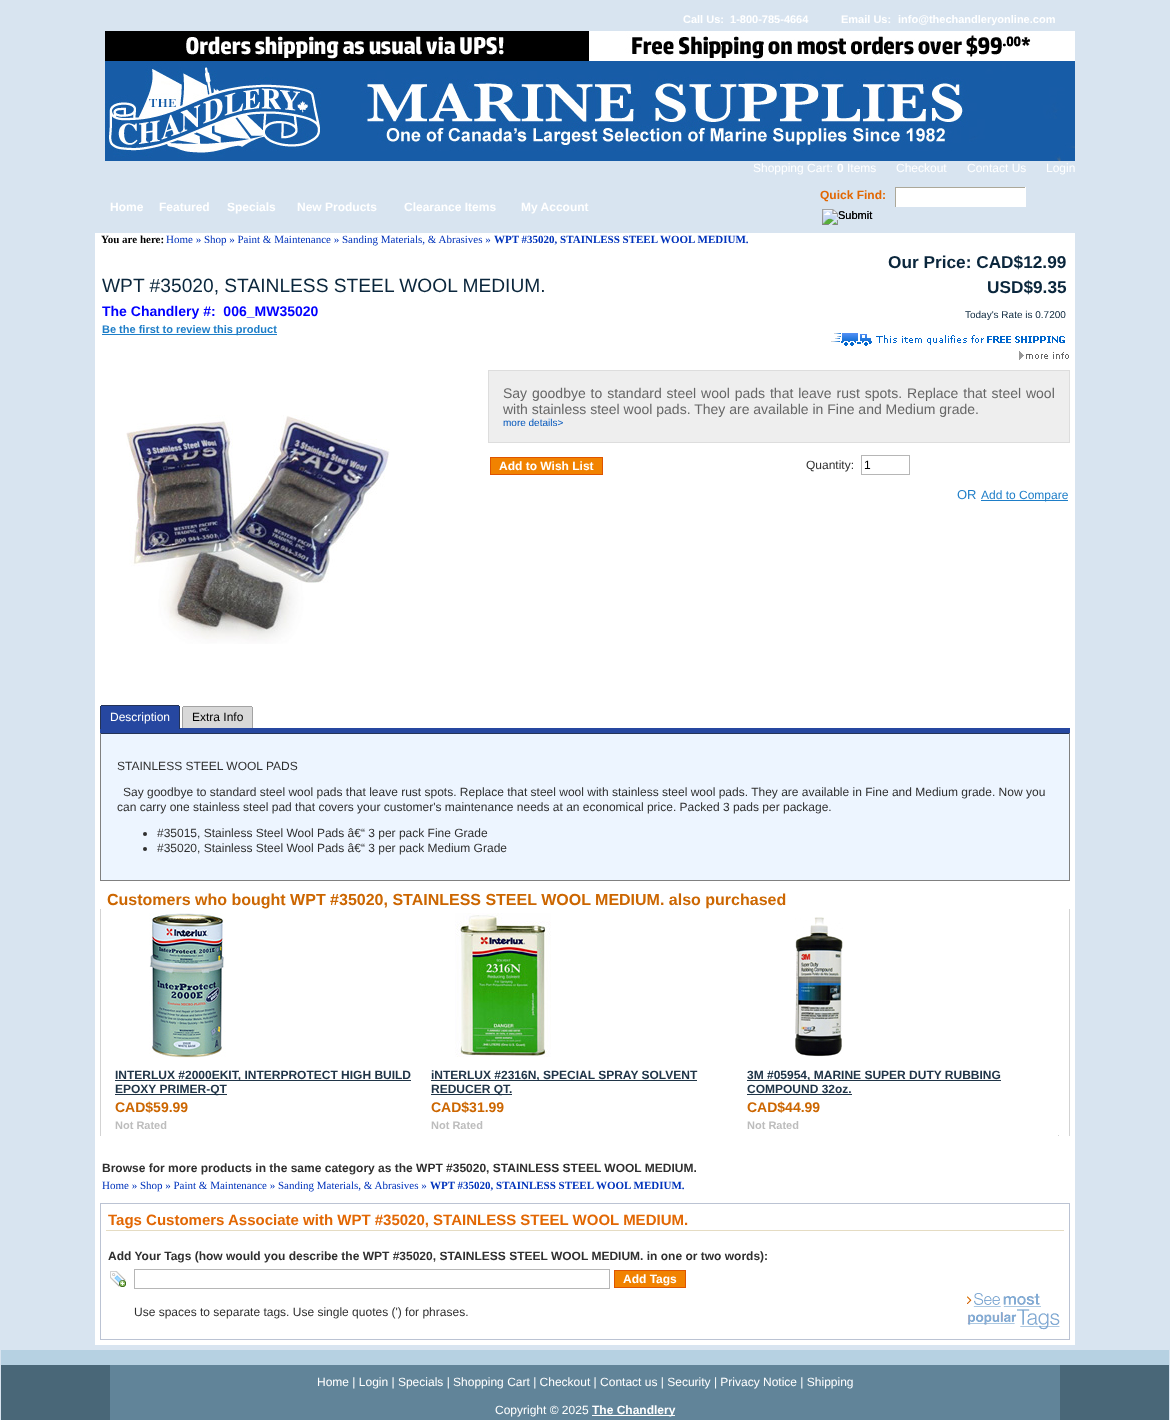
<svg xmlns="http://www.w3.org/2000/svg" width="1170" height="1420">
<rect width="100%" height="100%" fill="#d8e4f0"/>
<text x="683" y="23" style="font-family:Liberation Sans;font-size:11px;font-weight:bold;fill:#fff" xml:space="preserve">Call Us:  1-800-785-4664</text>
<text x="841" y="23" style="font-family:Liberation Sans;font-size:11px;font-weight:bold;fill:#fff">Email Us:</text>
<text x="898" y="23" style="font-family:Liberation Sans;font-size:11px;font-weight:bold;fill:#fff">info@thechandleryonline.com</text>
<image x="105" y="31" width="970" height="130" href="media/1.png"/>
<text x="753" y="172" style="font-family:Liberation Sans;font-size:12px;fill:#fff">Shopping Cart:</text>
<text x="837" y="172" style="font-family:Liberation Sans;font-size:12px;font-weight:bold;fill:#fff">0</text>
<text x="847" y="172" style="font-family:Liberation Sans;font-size:12px;fill:#fff">Items</text>
<text x="896" y="172" style="font-family:Liberation Sans;font-size:12px;fill:#fff">Checkout</text>
<text x="967" y="172" style="font-family:Liberation Sans;font-size:12px;fill:#fff">Contact Us</text>
<text x="1046" y="172" style="font-family:Liberation Sans;font-size:12px;fill:#fff">Login</text>
<text x="110" y="211" style="font-family:Liberation Sans;font-size:12px;font-weight:bold;fill:#fff">Home</text>
<text x="159" y="211" style="font-family:Liberation Sans;font-size:12px;font-weight:bold;fill:#fff">Featured</text>
<text x="227" y="211" style="font-family:Liberation Sans;font-size:12px;font-weight:bold;fill:#fff">Specials</text>
<text x="297" y="211" style="font-family:Liberation Sans;font-size:12px;font-weight:bold;fill:#fff">New Products</text>
<text x="404" y="211" style="font-family:Liberation Sans;font-size:12px;font-weight:bold;fill:#fff">Clearance Items</text>
<text x="521" y="211" style="font-family:Liberation Sans;font-size:12px;font-weight:bold;fill:#fff">My Account</text>
<text x="820" y="199" style="font-family:Liberation Sans;font-size:12px;font-weight:bold;fill:#e26703">Quick Find:</text>
<rect x="896" y="188" width="129" height="19" fill="#fff"/>
<rect x="895" y="187" width="131" height="1" fill="#aca899"/>
<rect x="1025" y="187" width="1" height="20" fill="#fff"/>
<rect x="895" y="187" width="1" height="20" fill="#aca899"/>
<image x="822" y="209" width="51" height="16" href="media/2.png"/>
<text x="838" y="219" style="font-family:Liberation Sans;font-size:11px;fill:#000">Submit</text>
<rect x="95" y="233" width="980" height="1112" fill="#fff"/>
<text x="101" y="243" style="font-family:Liberation Serif;font-size:11px;font-weight:bold;fill:#000">You are here:</text>
<text x="166" y="243" style="font-family:Liberation Serif;font-size:11px;fill:#03b">Home » Shop » Paint &amp; Maintenance » Sanding Materials, &amp; Abrasives »</text>
<text x="494" y="243" style="font-family:Liberation Serif;font-size:11px;font-weight:bold;fill:#03b">WPT #35020, STAINLESS STEEL WOOL MEDIUM.</text>
<text x="102" y="292" style="font-family:Liberation Sans;font-size:19.2px;fill:#0a263c">WPT #35020, STAINLESS STEEL WOOL MEDIUM.</text>
<text x="102" y="316" style="font-family:Liberation Sans;font-size:14px;font-weight:bold;fill:#00f" xml:space="preserve">The Chandlery #:  006_MW35020</text>
<rect x="102" y="334" width="175" height="1" fill="#1e7ec8"/>
<text x="102" y="333" style="font-family:Liberation Sans;font-size:11px;font-weight:bold;fill:#1e7ec8">Be the first to review this product</text>
<text x="888" y="268" style="font-family:Liberation Sans;font-size:17.25px;font-weight:bold;fill:#0a263c">Our Price: CAD$12.99</text>
<text x="987" y="293" style="font-family:Liberation Sans;font-size:17.25px;font-weight:bold;fill:#0a263c">USD$9.35</text>
<text x="965" y="318" style="font-family:Liberation Sans;font-size:10px;fill:#0a263c">Today's Rate is 0.7200</text>
<image x="831" y="333" width="234" height="13" href="media/3.png"/>
<image x="1019" y="351" width="50" height="9" href="media/4.png"/>
<image x="126" y="415" width="264" height="229" href="media/5.png"/>
<rect x="488.5" y="370.5" width="581" height="72" fill="#eee" stroke="#ddd"/>
<text x="503" y="398" word-spacing="1" style="font-family:Liberation Sans;font-size:14px;fill:#666">Say goodbye to standard steel wool pads that leave rust spots. Replace that steel wool</text>
<text x="503" y="414" style="font-family:Liberation Sans;font-size:14px;fill:#666">with stainless steel wool pads. They are available in Fine and Medium grade.</text>
<text x="503" y="426" style="font-family:Liberation Sans;font-size:10px;fill:#05b">more details&gt;</text>
<rect x="490.5" y="457.5" width="112" height="17" fill="#f18200" stroke="#de5400"/>
<text x="499" y="470" style="font-family:Liberation Sans;font-size:12px;font-weight:bold;fill:#fff">Add to Wish List</text>
<text x="806" y="469" style="font-family:Liberation Sans;font-size:12px;fill:#2f2f2f">Quantity:</text>
<rect x="861.5" y="455.5" width="48" height="19" fill="none" stroke="#b6b6b6"/>
<text x="864" y="469" style="font-family:Liberation Sans;font-size:12px;fill:#000">1</text>
<text x="957" y="499" style="font-family:Liberation Sans;font-size:13px;fill:#1e7ec8">OR</text>
<rect x="981" y="500" width="87" height="1" fill="#1e7ec8"/>
<text x="981" y="499" style="font-family:Liberation Sans;font-size:12px;fill:#1e7ec8">Add to Compare</text>
<rect x="100" y="728" width="970" height="5" fill="#2647a0"/>
<rect x="101" y="706" width="78" height="22" fill="#2647a0"/>
<rect x="179" y="706" width="1" height="23" fill="#243356"/>
<rect x="100" y="706" width="1" height="23" fill="#243356"/>
<rect x="101" y="705" width="78" height="1" fill="#243356"/>
<text x="110" y="721" style="font-family:Liberation Sans;font-size:12px;fill:#fff">Description</text>
<rect x="183" y="707" width="69" height="21" fill="#d8d8d8"/>
<rect x="252" y="707" width="1" height="21" fill="#a3a3a3"/>
<rect x="182" y="707" width="1" height="21" fill="#a3a3a3"/>
<rect x="183" y="706" width="69" height="1" fill="#a3a3a3"/>
<text x="192" y="721" style="font-family:Liberation Sans;font-size:12px;fill:#000">Extra Info</text>
<rect x="101" y="734" width="968" height="146" fill="#edf5ff"/>
<rect x="100" y="733" width="970" height="1" fill="#243356"/>
<rect x="1069" y="733" width="1" height="148" fill="#808080"/>
<rect x="100" y="880" width="970" height="1" fill="#808080"/>
<rect x="100" y="733" width="1" height="148" fill="#808080"/>
<text x="117" y="770" style="font-family:Liberation Sans;font-size:12px;fill:#2f2f2f">STAINLESS STEEL WOOL PADS</text>
<text x="123" y="796" style="font-family:Liberation Sans;font-size:12px;fill:#2f2f2f">Say goodbye to standard steel wool pads that leave rust spots. Replace that steel wool with stainless steel wool pads. They are available in Fine and Medium grade. Now you</text>
<text x="117" y="811" style="font-family:Liberation Sans;font-size:12px;fill:#2f2f2f">can carry one stainless steel pad that covers your customer's maintenance needs at an economical price. Packed 3 pads per package.</text>
<circle cx="145" cy="834" r="2" fill="#2f2f2f"/>
<text x="157" y="837" style="font-family:Liberation Sans;font-size:12px;fill:#2f2f2f">#35015, Stainless Steel Wool Pads â€“ 3 per pack Fine Grade</text>
<circle cx="145" cy="849" r="2" fill="#2f2f2f"/>
<text x="157" y="852" style="font-family:Liberation Sans;font-size:12px;fill:#2f2f2f">#35020, Stainless Steel Wool Pads â€“ 3 per pack Medium Grade</text>
<text x="107" y="905" style="font-family:Liberation Sans;font-size:16px;font-weight:bold;fill:#c60">Customers who bought WPT #35020, STAINLESS STEEL WOOL MEDIUM. also purchased</text>
<rect x="1069" y="909" width="1" height="227" fill="#d3d3d3"/>
<rect x="100" y="909" width="1" height="227" fill="#d3d3d3"/>
<image x="149" y="913" width="77" height="145" href="media/6.png"/>
<rect x="115" y="1080" width="296" height="1" fill="#203548"/>
<text x="115" y="1079" style="font-family:Liberation Sans;font-size:12px;font-weight:bold;fill:#203548">INTERLUX #2000EKIT, INTERPROTECT HIGH BUILD</text>
<rect x="115" y="1094" width="112" height="1" fill="#203548"/>
<text x="115" y="1093" style="font-family:Liberation Sans;font-size:12px;font-weight:bold;fill:#203548">EPOXY PRIMER-QT</text>
<text x="115" y="1112" style="font-family:Liberation Sans;font-size:14px;font-weight:bold;fill:#c60">CAD$59.99</text>
<text x="115" y="1129" style="font-family:Liberation Sans;font-size:11px;font-weight:bold;fill:#bdbdbd">Not Rated</text>
<image x="455" y="913" width="96" height="144" href="media/7.png"/>
<rect x="431" y="1080" width="266" height="1" fill="#203548"/>
<text x="431" y="1079" style="font-family:Liberation Sans;font-size:12px;font-weight:bold;fill:#203548">iNTERLUX #2316N, SPECIAL SPRAY SOLVENT</text>
<rect x="431" y="1094" width="81" height="1" fill="#203548"/>
<text x="431" y="1093" style="font-family:Liberation Sans;font-size:12px;font-weight:bold;fill:#203548">REDUCER QT.</text>
<text x="431" y="1112" style="font-family:Liberation Sans;font-size:14px;font-weight:bold;fill:#c60">CAD$31.99</text>
<text x="431" y="1129" style="font-family:Liberation Sans;font-size:11px;font-weight:bold;fill:#bdbdbd">Not Rated</text>
<image x="795" y="917" width="48" height="140" href="media/8.png"/>
<rect x="747" y="1080" width="254" height="1" fill="#203548"/>
<text x="747" y="1079" style="font-family:Liberation Sans;font-size:12px;font-weight:bold;fill:#203548">3M #05954, MARINE SUPER DUTY RUBBING</text>
<text x="747" y="1093" style="font-family:Liberation Sans;font-size:12px;font-weight:bold;fill:#203548">COMPOUND 32oz.</text>
<rect x="747" y="1094" width="105" height="1" fill="#203548"/>
<text x="747" y="1112" style="font-family:Liberation Sans;font-size:14px;font-weight:bold;fill:#c60">CAD$44.99</text>
<text x="747" y="1129" style="font-family:Liberation Sans;font-size:11px;font-weight:bold;fill:#bdbdbd">Not Rated</text>
<rect x="1058" y="1135" width="1" height="1" fill="#d3d3d3"/>
<text x="102" y="1172" style="font-family:Liberation Sans;font-size:12px;font-weight:bold;fill:#2f2f2f">Browse for more products in the same category as the WPT #35020, STAINLESS STEEL WOOL MEDIUM.</text>
<text x="102" y="1189" style="font-family:Liberation Serif;font-size:11px;fill:#03b">Home » Shop » Paint &amp; Maintenance » Sanding Materials, &amp; Abrasives »</text>
<text x="430" y="1189" style="font-family:Liberation Serif;font-size:11px;font-weight:bold;fill:#03b">WPT #35020, STAINLESS STEEL WOOL MEDIUM.</text>
<rect x="100.5" y="1203.5" width="969" height="136" fill="none" stroke="#bbc3d3"/>
<text x="108" y="1225" style="font-family:Liberation Sans;font-size:15px;font-weight:bold;fill:#e26703">Tags Customers Associate with WPT #35020, STAINLESS STEEL WOOL MEDIUM.</text>
<rect x="106" y="1230" width="958" height="1" fill="#e5dcc3"/>
<text x="108" y="1260" style="font-family:Liberation Sans;font-size:12px;font-weight:bold;fill:#2f2f2f">Add Your Tags (how would you describe the WPT #35020, STAINLESS STEEL WOOL MEDIUM. in one or two words):</text>
<image x="110" y="1271" width="16" height="16" href="media/9.png"/>
<rect x="134.5" y="1269.5" width="475" height="19" fill="none" stroke="#b6b6b6"/>
<rect x="614.5" y="1270.5" width="71" height="17" fill="#f18200" stroke="#de5400"/>
<text x="623" y="1283" style="font-family:Liberation Sans;font-size:12px;font-weight:bold;fill:#fff">Add Tags</text>
<text x="134" y="1316" style="font-family:Liberation Sans;font-size:12px;fill:#2f2f2f">Use spaces to separate tags. Use single quotes (') for phrases.</text>
<image x="967" y="1293" width="93" height="37" href="media/10.png"/>
<rect x="1" y="1350" width="1168" height="15" fill="#b6d1e2"/>
<rect x="1" y="1365" width="1168" height="55" fill="#496778"/>
<rect x="110" y="1365" width="950" height="55" fill="#618499"/>
<text x="317" y="1386" style="font-family:Liberation Sans;font-size:12px;fill:#fff">Home | Login | Specials | Shopping Cart | Checkout | Contact us | Security | Privacy Notice | Shipping</text>
<text x="495" y="1414" style="font-family:Liberation Sans;font-size:12px;fill:#fff">Copyright © 2025</text>
<rect x="592" y="1415" width="83" height="1" fill="#fff"/>
<text x="592" y="1414" style="font-family:Liberation Sans;font-size:12px;font-weight:bold;fill:#fff">The Chandlery</text>
</svg>
